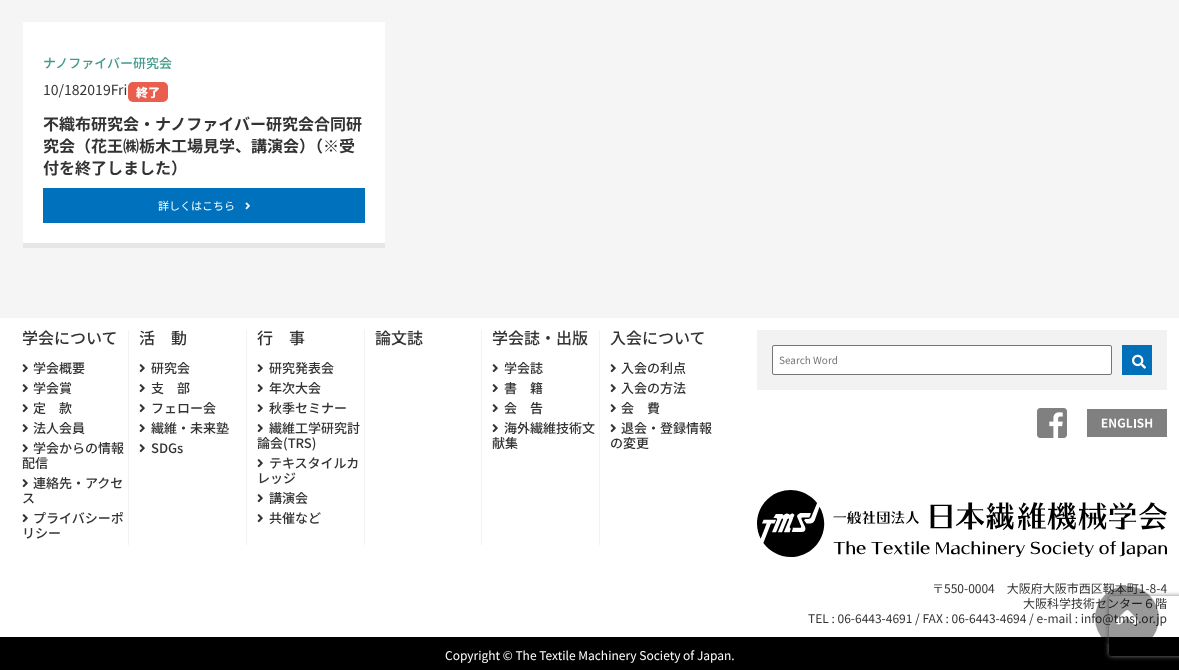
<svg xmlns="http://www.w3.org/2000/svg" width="1179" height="670">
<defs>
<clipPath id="clip1"><path d="M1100 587h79v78h-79zm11 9h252c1 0 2 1 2 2v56c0 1-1 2-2 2h-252c-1 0-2-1-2-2v-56c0-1 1-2 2-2z" clip-rule="evenodd"/></clipPath>
</defs>
<rect width="100%" height="100%" fill="#fff"/>
<rect width="1179" height="318" fill="#f5f5f5"/>
<rect x="23" y="22" width="362" height="221" fill="#fff"/>
<rect x="23" y="243" width="362" height="5" fill="#e6e6e6"/>
<text x="43" y="68" style="font-family:Noto Sans JP;font-size:13px;font-weight:500;fill:#449a8c">ナノファイバー研究会</text>
<text x="43" y="95" style="font-family:Noto Sans JP;font-size:14px;fill:#333">10/182019Fri</text>
<rect x="128" y="82" width="40" height="20" rx="5" fill="#e95e4c"/>
<text x="136" y="97" style="font-family:Noto Sans JP;font-size:12px;font-weight:900;fill:#fff">終了</text>
<text x="43" y="130" style="font-family:Noto Sans JP;font-size:16px;font-weight:bold;fill:#333">不織布研究会・ナノファイバー研究会合同研</text>
<text x="43" y="152" style="font-family:Noto Sans JP;font-size:16px;font-weight:bold;fill:#333">究会（花王㈱栃木工場見学、講演会）（※受</text>
<text x="43" y="174" style="font-family:Noto Sans JP;font-size:16px;font-weight:bold;fill:#333">付を終了しました）</text>
<rect x="43" y="188" width="322" height="35" fill="#0071bc"/>
<text x="158" y="210" style="font-family:Noto Sans JP;font-size:11px;fill:#fff">詳しくはこちら</text>
<image x="245" y="202" width="5" height="8" href="media/1.png"/>
<rect x="128" y="330" width="1" height="215" fill="#f2f2f2"/>
<text x="22" y="344" style="font-family:Noto Sans JP;font-size:16px;font-weight:500;fill:#333">学会について</text>
<image x="22" y="364" width="6" height="9" href="media/2.png"/>
<text x="33" y="373" style="font-family:Noto Sans JP;font-size:13px;font-weight:500;fill:#333">学会概要</text>
<image x="22" y="384" width="6" height="9" href="media/2.png"/>
<text x="33" y="393" style="font-family:Noto Sans JP;font-size:13px;font-weight:500;fill:#333">学会賞</text>
<image x="22" y="404" width="6" height="9" href="media/2.png"/>
<text x="33" y="413" style="font-family:Noto Sans JP;font-size:13px;font-weight:500;fill:#333">定　款</text>
<image x="22" y="424" width="6" height="9" href="media/2.png"/>
<text x="33" y="433" style="font-family:Noto Sans JP;font-size:13px;font-weight:500;fill:#333">法人会員</text>
<image x="22" y="444" width="6" height="9" href="media/2.png"/>
<text x="33" y="453" style="font-family:Noto Sans JP;font-size:13px;font-weight:500;fill:#333">学会からの情報</text>
<text x="22" y="468" style="font-family:Noto Sans JP;font-size:13px;font-weight:500;fill:#333">配信</text>
<image x="22" y="479" width="6" height="9" href="media/2.png"/>
<text x="33" y="488" style="font-family:Noto Sans JP;font-size:13px;font-weight:500;fill:#333">連絡先・アクセ</text>
<text x="22" y="503" style="font-family:Noto Sans JP;font-size:13px;font-weight:500;fill:#333">ス</text>
<image x="22" y="514" width="6" height="9" href="media/2.png"/>
<text x="33" y="523" style="font-family:Noto Sans JP;font-size:13px;font-weight:500;fill:#333">プライバシーポ</text>
<text x="22" y="538" style="font-family:Noto Sans JP;font-size:13px;font-weight:500;fill:#333">リシー</text>
<rect x="246" y="330" width="1" height="215" fill="#f2f2f2"/>
<text x="139" y="344" style="font-family:Noto Sans JP;font-size:16px;font-weight:500;fill:#333">活　動</text>
<image x="139" y="364" width="6" height="9" href="media/2.png"/>
<text x="151" y="373" style="font-family:Noto Sans JP;font-size:13px;font-weight:500;fill:#333">研究会</text>
<image x="139" y="384" width="6" height="9" href="media/2.png"/>
<text x="151" y="393" style="font-family:Noto Sans JP;font-size:13px;font-weight:500;fill:#333">支　部</text>
<image x="139" y="404" width="6" height="9" href="media/2.png"/>
<text x="151" y="413" style="font-family:Noto Sans JP;font-size:13px;font-weight:500;fill:#333">フェロー会</text>
<image x="139" y="424" width="6" height="9" href="media/2.png"/>
<text x="151" y="433" style="font-family:Noto Sans JP;font-size:13px;font-weight:500;fill:#333">繊維・未来塾</text>
<image x="139" y="444" width="6" height="9" href="media/2.png"/>
<text x="151" y="453" style="font-family:Noto Sans JP;font-size:13px;font-weight:500;fill:#333">SDGs</text>
<rect x="364" y="330" width="1" height="215" fill="#f2f2f2"/>
<text x="257" y="344" style="font-family:Noto Sans JP;font-size:16px;font-weight:500;fill:#333">行　事</text>
<image x="257" y="364" width="6" height="9" href="media/2.png"/>
<text x="269" y="373" style="font-family:Noto Sans JP;font-size:13px;font-weight:500;fill:#333">研究発表会</text>
<image x="257" y="384" width="6" height="9" href="media/2.png"/>
<text x="269" y="393" style="font-family:Noto Sans JP;font-size:13px;font-weight:500;fill:#333">年次大会</text>
<image x="257" y="404" width="6" height="9" href="media/2.png"/>
<text x="269" y="413" style="font-family:Noto Sans JP;font-size:13px;font-weight:500;fill:#333">秋季セミナー</text>
<image x="257" y="424" width="6" height="9" href="media/2.png"/>
<text x="269" y="433" style="font-family:Noto Sans JP;font-size:13px;font-weight:500;fill:#333">繊維工学研究討</text>
<text x="257" y="448" style="font-family:Noto Sans JP;font-size:13px;font-weight:500;fill:#333">論会(TRS)</text>
<image x="257" y="459" width="6" height="9" href="media/2.png"/>
<text x="269" y="468" style="font-family:Noto Sans JP;font-size:13px;font-weight:500;fill:#333">テキスタイルカ</text>
<text x="257" y="483" style="font-family:Noto Sans JP;font-size:13px;font-weight:500;fill:#333">レッジ</text>
<image x="257" y="494" width="6" height="9" href="media/2.png"/>
<text x="269" y="503" style="font-family:Noto Sans JP;font-size:13px;font-weight:500;fill:#333">講演会</text>
<image x="257" y="514" width="6" height="9" href="media/2.png"/>
<text x="269" y="523" style="font-family:Noto Sans JP;font-size:13px;font-weight:500;fill:#333">共催など</text>
<rect x="481" y="330" width="1" height="215" fill="#f2f2f2"/>
<text x="375" y="344" style="font-family:Noto Sans JP;font-size:16px;font-weight:500;fill:#333">論文誌</text>
<rect x="599" y="330" width="1" height="215" fill="#f2f2f2"/>
<text x="492" y="344" style="font-family:Noto Sans JP;font-size:16px;font-weight:500;fill:#333">学会誌・出版</text>
<image x="492" y="364" width="6" height="9" href="media/2.png"/>
<text x="504" y="373" style="font-family:Noto Sans JP;font-size:13px;font-weight:500;fill:#333">学会誌</text>
<image x="492" y="384" width="6" height="9" href="media/2.png"/>
<text x="504" y="393" style="font-family:Noto Sans JP;font-size:13px;font-weight:500;fill:#333">書　籍</text>
<image x="492" y="404" width="6" height="9" href="media/2.png"/>
<text x="504" y="413" style="font-family:Noto Sans JP;font-size:13px;font-weight:500;fill:#333">会　告</text>
<image x="492" y="424" width="6" height="9" href="media/2.png"/>
<text x="504" y="433" style="font-family:Noto Sans JP;font-size:13px;font-weight:500;fill:#333">海外繊維技術文</text>
<text x="492" y="448" style="font-family:Noto Sans JP;font-size:13px;font-weight:500;fill:#333">献集</text>
<text x="610" y="344" style="font-family:Noto Sans JP;font-size:16px;font-weight:500;fill:#333">入会について</text>
<image x="610" y="364" width="6" height="9" href="media/2.png"/>
<text x="621" y="373" style="font-family:Noto Sans JP;font-size:13px;font-weight:500;fill:#333">入会の利点</text>
<image x="610" y="384" width="6" height="9" href="media/2.png"/>
<text x="621" y="393" style="font-family:Noto Sans JP;font-size:13px;font-weight:500;fill:#333">入会の方法</text>
<image x="610" y="404" width="6" height="9" href="media/2.png"/>
<text x="621" y="413" style="font-family:Noto Sans JP;font-size:13px;font-weight:500;fill:#333">会　費</text>
<image x="610" y="424" width="6" height="9" href="media/2.png"/>
<text x="621" y="433" style="font-family:Noto Sans JP;font-size:13px;font-weight:500;fill:#333">退会・登録情報</text>
<text x="610" y="448" style="font-family:Noto Sans JP;font-size:13px;font-weight:500;fill:#333">の変更</text>
<rect x="757" y="330" width="410" height="60" fill="#f2f2f2"/>
<rect x="772.5" y="345.5" width="339" height="29" rx="1.5" fill="#fff" stroke="#767676"/>
<text x="779" y="364" style="font-family:Noto Sans JP;font-size:10px;fill:#757575">Search Word</text>
<rect x="1122" y="345" width="30" height="30" fill="#0170bb"/>
<image x="1132" y="354" width="14" height="15" href="media/3.png"/>
<image x="1037" y="408" width="30" height="30" href="media/4.png"/>
<image x="1087" y="409" width="80" height="28" href="media/5.png"/>
<image x="757" y="490" width="410" height="67" href="media/6.png"/>
<text x="932" y="593" style="font-family:Noto Sans JP;font-size:12px;fill:#333">〒550-0004　大阪府大阪市西区靱本町1-8-4</text>
<text x="1023" y="608" style="font-family:Noto Sans JP;font-size:12px;fill:#333">大阪科学技術センター６階</text>
<text x="808" y="623" style="font-family:Noto Sans JP;font-size:12px;fill:#333">TEL : 06-6443-4691 / FAX : 06-6443-4694 / e-mail : info@tmsj.or.jp</text>
<rect y="637" width="1179" height="33" fill="#000"/>
<text x="445" y="660" style="font-family:Noto Sans JP;font-size:12px;fill:#fff">Copyright © The Textile Machinery Society of Japan.</text>
<g clip-path="url(#clip1)">
<rect x="1109" y="596" width="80" height="60" rx="2" fill="#808080" filter="blur(2.5px)"/>
</g>
<image x="1095" y="586" width="64" height="58" href="media/7.png"/>
</svg>
